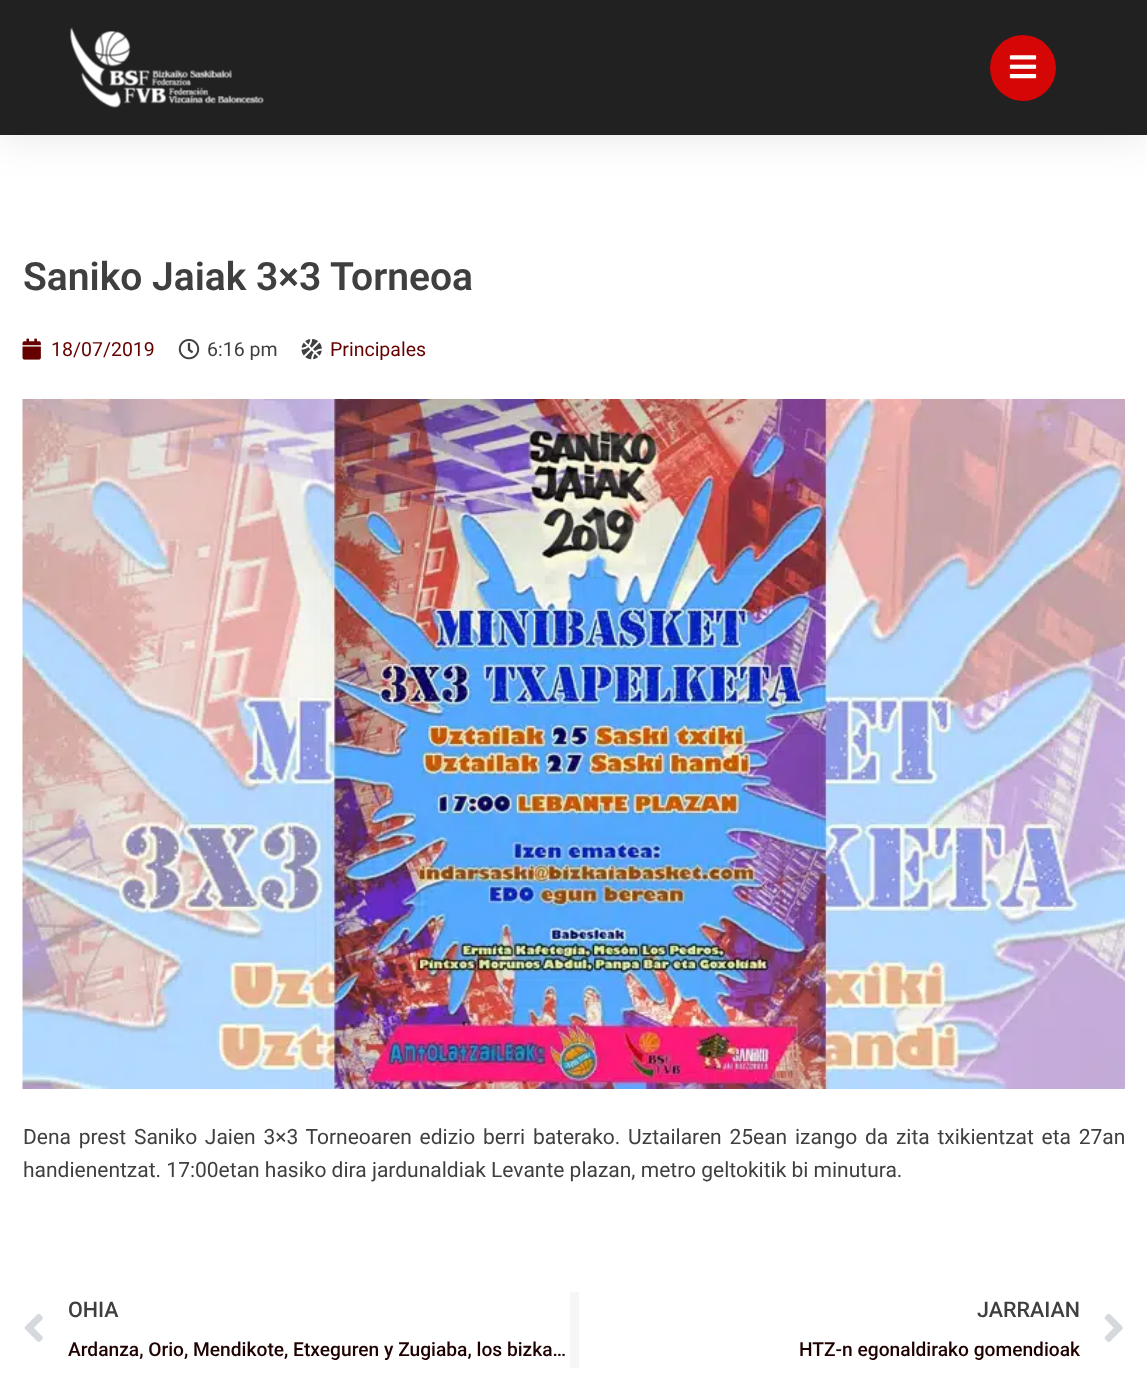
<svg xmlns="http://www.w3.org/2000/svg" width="1147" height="1379">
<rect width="100%" height="100%" fill="#fff"/>
<rect width="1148" height="135" fill="#0000001a" filter="blur(22.5px)"/>
<rect width="1147" height="135" fill="#212121"/>
<image x="70" y="27" width="194" height="81" href="media/1.png"/>
<circle cx="1023" cy="68" r="33" fill="#d50606"/>
<image x="1009" y="55" width="28" height="24" href="media/2.png"/>
<text x="23" y="290" style="font-family:Roboto;font-size:39px;font-weight:600;fill:#3f3f3f">Saniko Jaiak 3×3 Torneoa</text>
<image x="22" y="338" width="19" height="22" href="media/3.png"/>
<text x="51" y="356" style="font-family:Roboto;font-size:19.5px;fill:#650101">18/07/2019</text>
<image x="178" y="339" width="22" height="21" href="media/4.png"/>
<text x="207" y="356" style="font-family:Roboto;font-size:19.5px;fill:#3f3f3f">6:16 pm</text>
<image x="301" y="339" width="21" height="21" href="media/5.png"/>
<text x="330" y="356" style="font-family:Roboto;font-size:19.5px;fill:#650101">Principales</text>
<image x="22" y="399" width="1103" height="690" href="media/6.png"/>
<text x="23" y="1144" word-spacing="2.5" style="font-family:Roboto;font-size:21px;fill:#3f3f3f">Dena prest Saniko Jaien 3×3 Torneoaren edizio berri baterako. Uztailaren 25ean izango da zita txikientzat eta 27an</text>
<text x="23" y="1177" style="font-family:Roboto;font-size:21px;fill:#3f3f3f">handienentzat. 17:00etan hasiko dira jardunaldiak Levante plazan, metro geltokitik bi minutura.</text>
<image x="24" y="1313" width="19" height="29" href="media/7.png"/>
<text x="68" y="1317" style="font-family:Roboto;font-size:21.5px;font-weight:500;fill:#3f3f3f">OHIA</text>
<text x="68" y="1356" style="font-family:Roboto;font-size:19.2px;font-weight:500;fill:#1e0000">Ardanza, Orio, Mendikote, Etxeguren y Zugiaba, los bizka…</text>
<rect x="570" y="1292" width="9" height="76" fill="#f6f6f6"/>
<text x="977" y="1317" style="font-family:Roboto;font-size:21.5px;font-weight:500;fill:#3f3f3f">JARRAIAN</text>
<text x="799" y="1356" style="font-family:Roboto;font-size:19.2px;font-weight:500;fill:#1e0000">HTZ-n egonaldirako gomendioak</text>
<image x="1104" y="1313" width="19" height="29" href="media/8.png"/>
</svg>
